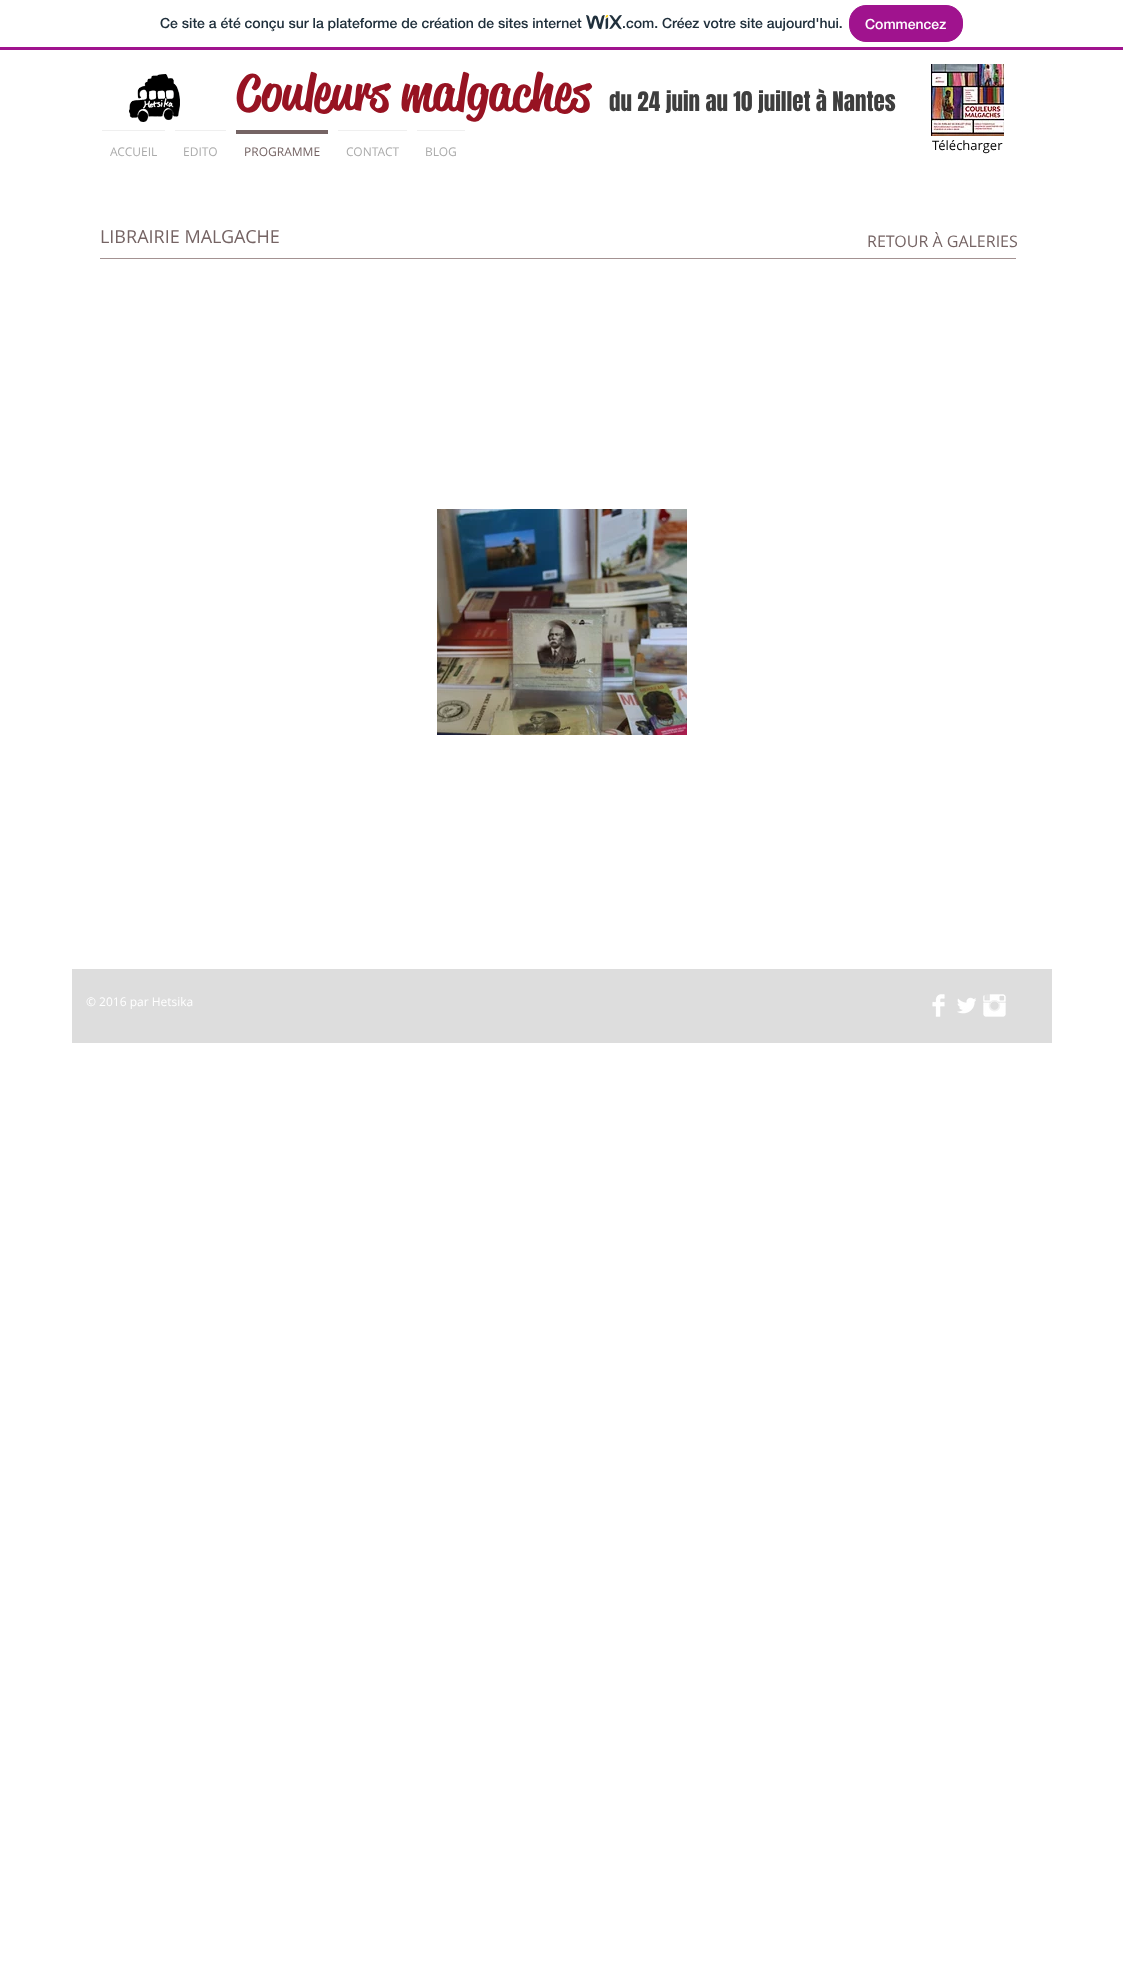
<svg xmlns="http://www.w3.org/2000/svg" width="1123" height="1975">
<rect width="100%" height="100%" fill="#fff"/>
<rect y="47" width="1123" height="3" fill="#a0138e"/>
<text x="160" y="28" style="font-family:'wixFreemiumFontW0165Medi';font-size:14px;font-weight:500;fill:#20303c">Ce site a été conçu sur la plateforme de création de sites internet</text>
<image x="586" y="15" width="36" height="15" href="media/1.png"/>
<text x="622" y="28" style="font-family:'wixFreemiumFontW0165Medi';font-size:14px;font-weight:500;fill:#20303c">.com. Créez votre site aujourd'hui.</text>
<rect x="849.5" y="5.5" width="113" height="36" rx="16.5" fill="#a0138e" stroke="#a0138e"/>
<text x="865" y="29" style="font-family:'wixFreemiumFontW0165Medi';font-size:14px;font-weight:500;fill:#fff">Commencez</text>
<image x="129" y="74" width="51" height="48" href="media/2.png"/>
<text x="236" y="110" style="font-family:'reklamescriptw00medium';font-size:51px;font-weight:500;fill:#971322">Couleurs malgaches</text>
<text x="609" y="111" style="font-family:Anton;font-size:23px;fill:#3e3e3e">du 24 juin au 10 juillet à Nantes</text>
<rect x="102" y="130" width="63" height="1" fill="#efefef"/>
<text x="110" y="156" style="font-family:Open Sans;font-size:12px;fill:#ababab">ACCUEIL</text>
<rect x="175" y="130" width="51" height="1" fill="#efefef"/>
<text x="183" y="156" style="font-family:Open Sans;font-size:12px;fill:#ababab">EDITO</text>
<rect x="236" y="130" width="92" height="4" fill="#756464"/>
<text x="244" y="156" style="font-family:Open Sans;font-size:12px;fill:#756464">PROGRAMME</text>
<rect x="338" y="130" width="69" height="1" fill="#efefef"/>
<text x="346" y="156" style="font-family:Open Sans;font-size:12px;fill:#ababab">CONTACT</text>
<rect x="417" y="130" width="48" height="1" fill="#efefef"/>
<text x="425" y="156" style="font-family:Open Sans;font-size:12px;fill:#ababab">BLOG</text>
<image x="931" y="64" width="73" height="72" href="media/3.png"/>
<text x="932" y="150" style="font-family:Open Sans;font-size:13px;fill:#000">Télécharger</text>
<text x="100" y="243" style="font-family:Open Sans;font-size:18px;fill:#756464">LIBRAIRIE MALGACHE</text>
<text x="867" y="247" style="font-family:Open Sans;font-size:16px;fill:#756464">RETOUR À GALERIES</text>
<rect x="100" y="258" width="916" height="1" fill="#a39292"/>
<image x="437" y="509" width="250" height="226" href="media/4.png"/>
<rect x="72" y="969" width="980" height="74" fill="#ddd"/>
<text x="86" y="1006" style="font-family:Open Sans;font-size:12px;fill:#fff">© 2016 par Hetsika</text>
<image x="932" y="994" width="13" height="23" href="media/5.png"/>
<image x="957" y="997" width="19" height="17" href="media/6.png"/>
<image x="983" y="994" width="23" height="23" href="media/7.png"/>
</svg>
